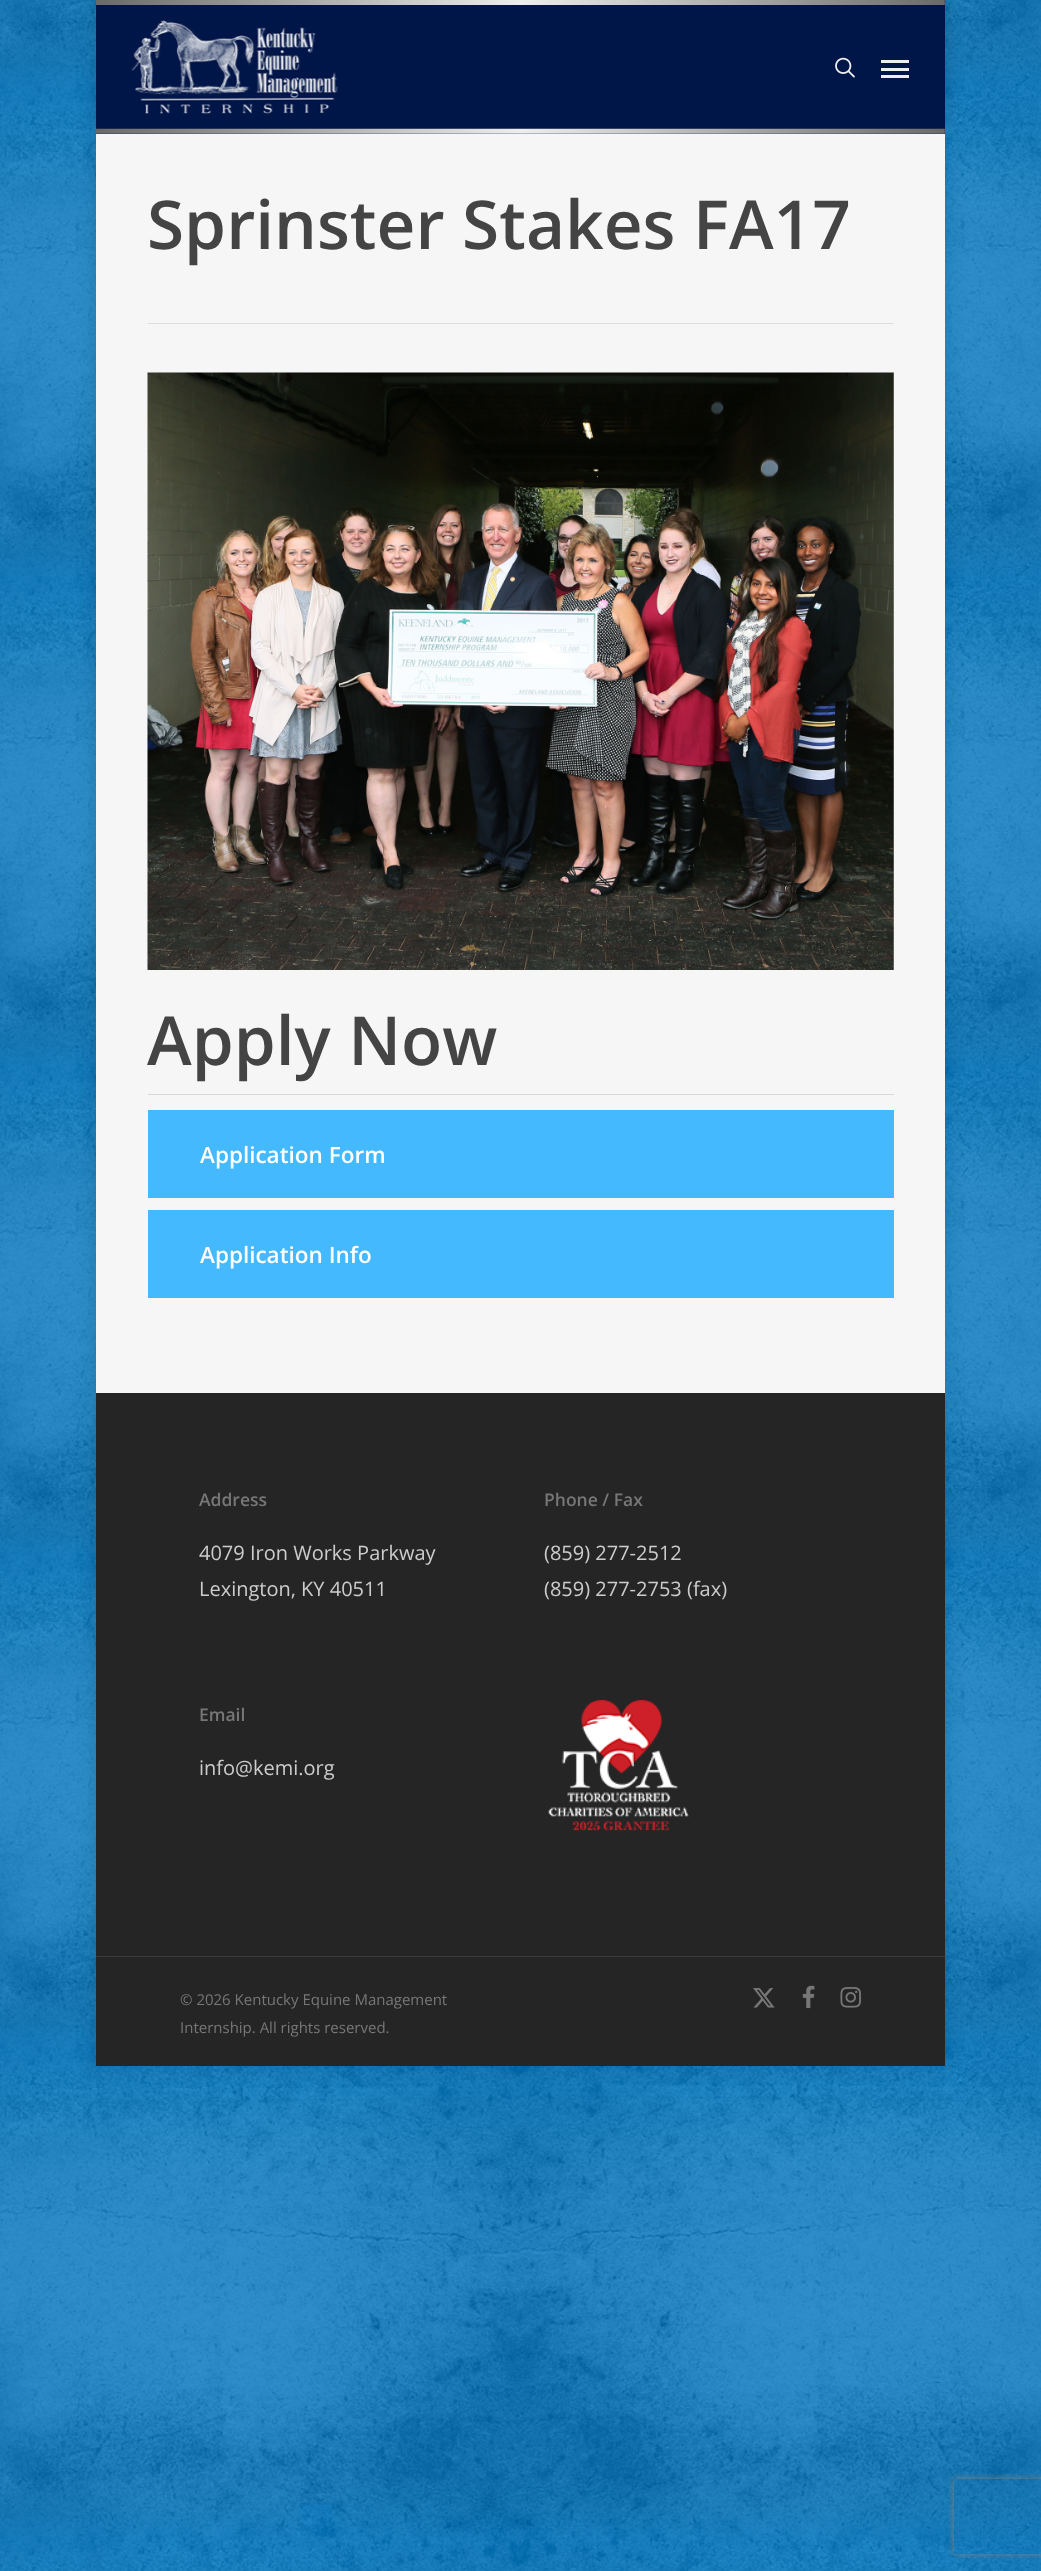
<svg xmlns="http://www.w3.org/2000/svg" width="1041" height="2571">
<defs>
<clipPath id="clip1"><path d="M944 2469h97v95h-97zm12.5 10h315c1.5 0 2.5 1 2.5 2.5v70c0 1.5-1 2.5-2.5 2.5h-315c-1.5 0-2.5-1-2.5-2.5v-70c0-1.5 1-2.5 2.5-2.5z" clip-rule="evenodd"/></clipPath>
</defs>
<rect width="100%" height="100%" fill="#fff"/>
<image x="0" y="0" width="1041" height="2571" href="media/1.png"/>
<rect x="96" width="849" height="2066" fill="#00000026" filter="blur(9.5px)"/>
<rect x="96" width="849" height="134" fill="#011648"/>
<image x="96" y="0" width="849" height="134" href="media/2.png"/>
<image x="131" y="20" width="207" height="94" href="media/3.png"/>
<image x="835" y="57" width="20" height="21" href="media/4.png"/>
<rect x="881" y="60" width="28" height="3" fill="#eee"/>
<rect x="881" y="75" width="28" height="3" fill="#eee"/>
<rect x="881" y="68" width="28" height="3" fill="#eee"/>
<rect x="96" y="134" width="849" height="1259" fill="#f6f6f6"/>
<rect x="148" y="323" width="746" height="1" fill="#ddd"/>
<text x="147" y="249" style="font-family:Open Sans;font-size:67.5px;font-weight:600;fill:#444">Sprinster Stakes FA17</text>
<image x="147" y="372" width="747" height="598" href="media/5.png"/>
<text x="147" y="1065" style="font-family:Open Sans;font-size:67.5px;font-weight:600;fill:#444">Apply Now</text>
<rect x="148" y="1094" width="746" height="1" fill="#d8d8d8"/>
<rect x="148" y="1110" width="746" height="88" fill="#44b9fe"/>
<text x="200" y="1163" style="font-family:Open Sans;font-size:22.5px;font-weight:600;fill:#fff">Application Form</text>
<rect x="148" y="1210" width="746" height="88" fill="#44b9fe"/>
<text x="200" y="1263" style="font-family:Open Sans;font-size:22.5px;font-weight:600;fill:#fff">Application Info</text>
<rect x="96" y="1393" width="849" height="673" fill="#252525"/>
<text x="199" y="1506" style="font-family:Open Sans;font-size:17.5px;font-weight:600;fill:#777">Address</text>
<text x="199" y="1560" style="font-family:Open Sans;font-size:20px;fill:#ccc">4079 Iron Works Parkway</text>
<text x="199" y="1596" style="font-family:Open Sans;font-size:20px;fill:#ccc">Lexington, KY 40511</text>
<text x="544" y="1506" style="font-family:Open Sans;font-size:17.5px;font-weight:600;fill:#777">Phone / Fax</text>
<text x="544" y="1560" style="font-family:Open Sans;font-size:20px;fill:#ccc">(859) 277-2512</text>
<text x="544" y="1596" style="font-family:Open Sans;font-size:20px;fill:#ccc">(859) 277-2753 (fax)</text>
<text x="199" y="1721" style="font-family:Open Sans;font-size:17.5px;font-weight:600;fill:#777">Email</text>
<text x="199" y="1775" style="font-family:Open Sans;font-size:20px;fill:#ccc">info@kemi.org</text>
<image x="548" y="1699" width="141" height="132" href="media/6.png"/>
<rect x="96" y="1956" width="849" height="1" fill="#3b3b3b"/>
<text x="180" y="2005" style="font-family:Open Sans;font-size:15px;fill:#777">© 2026 Kentucky Equine Management</text>
<text x="180" y="2033" style="font-family:Open Sans;font-size:15px;fill:#777">Internship. All rights reserved.</text>
<image x="753" y="1988" width="22" height="20" href="media/7.png"/>
<image x="802" y="1985" width="13" height="24" href="media/8.png"/>
<image x="840" y="1987" width="21" height="21" href="media/9.png"/>
<g clip-path="url(#clip1)">
<rect x="954" y="2479" width="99" height="75" rx="2.5" fill="#808080" filter="blur(3px)"/>
</g>
</svg>
